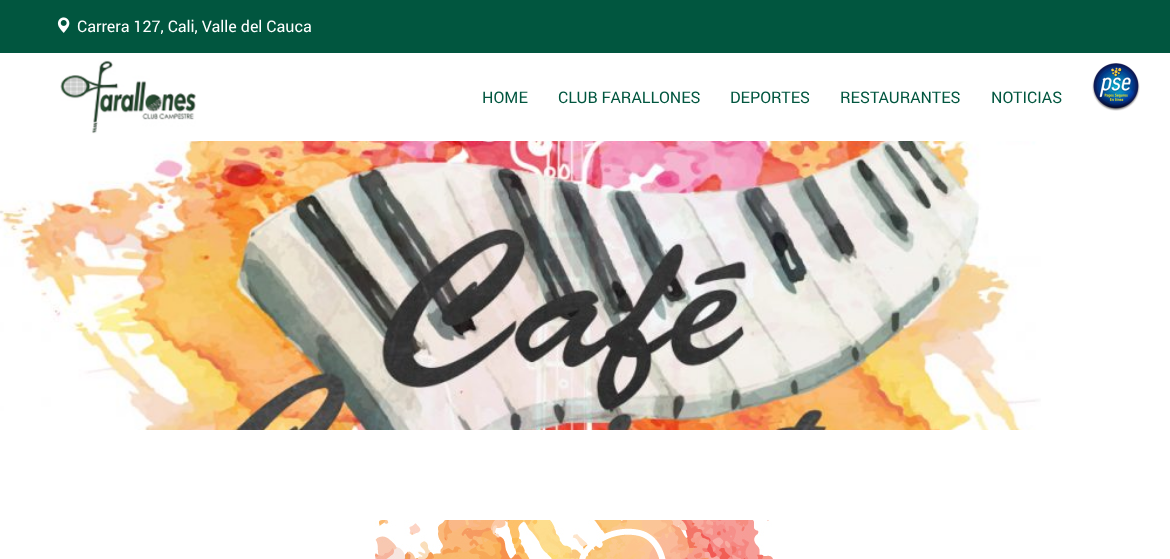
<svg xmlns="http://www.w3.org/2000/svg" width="1170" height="559">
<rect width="100%" height="100%" fill="#fff"/>
<rect width="1170" height="53" fill="#01563f"/>
<image x="57" y="17" width="13" height="16" href="media/1.png"/>
<text x="77" y="32" style="font-family:Roboto;font-size:16px;fill:#fff">Carrera 127, Cali, Valle del Cauca</text>
<image x="60" y="60" width="136" height="74" href="media/2.png"/>
<text x="482" y="103" style="font-family:Roboto;font-size:16px;fill:#01563f">HOME</text>
<text x="558" y="103" style="font-family:Roboto;font-size:16px;fill:#01563f">CLUB FARALLONES</text>
<text x="730" y="103" style="font-family:Roboto;font-size:16px;fill:#01563f">DEPORTES</text>
<text x="840" y="103" style="font-family:Roboto;font-size:16px;fill:#01563f">RESTAURANTES</text>
<text x="991" y="103" style="font-family:Roboto;font-size:16px;fill:#01563f">NOTICIAS</text>
<image x="1092" y="63" width="48" height="48" href="media/3.png"/>
<image x="0" y="141" width="1041" height="289" href="media/4.png"/>
<image x="375" y="520" width="398" height="39" href="media/5.png"/>
</svg>
